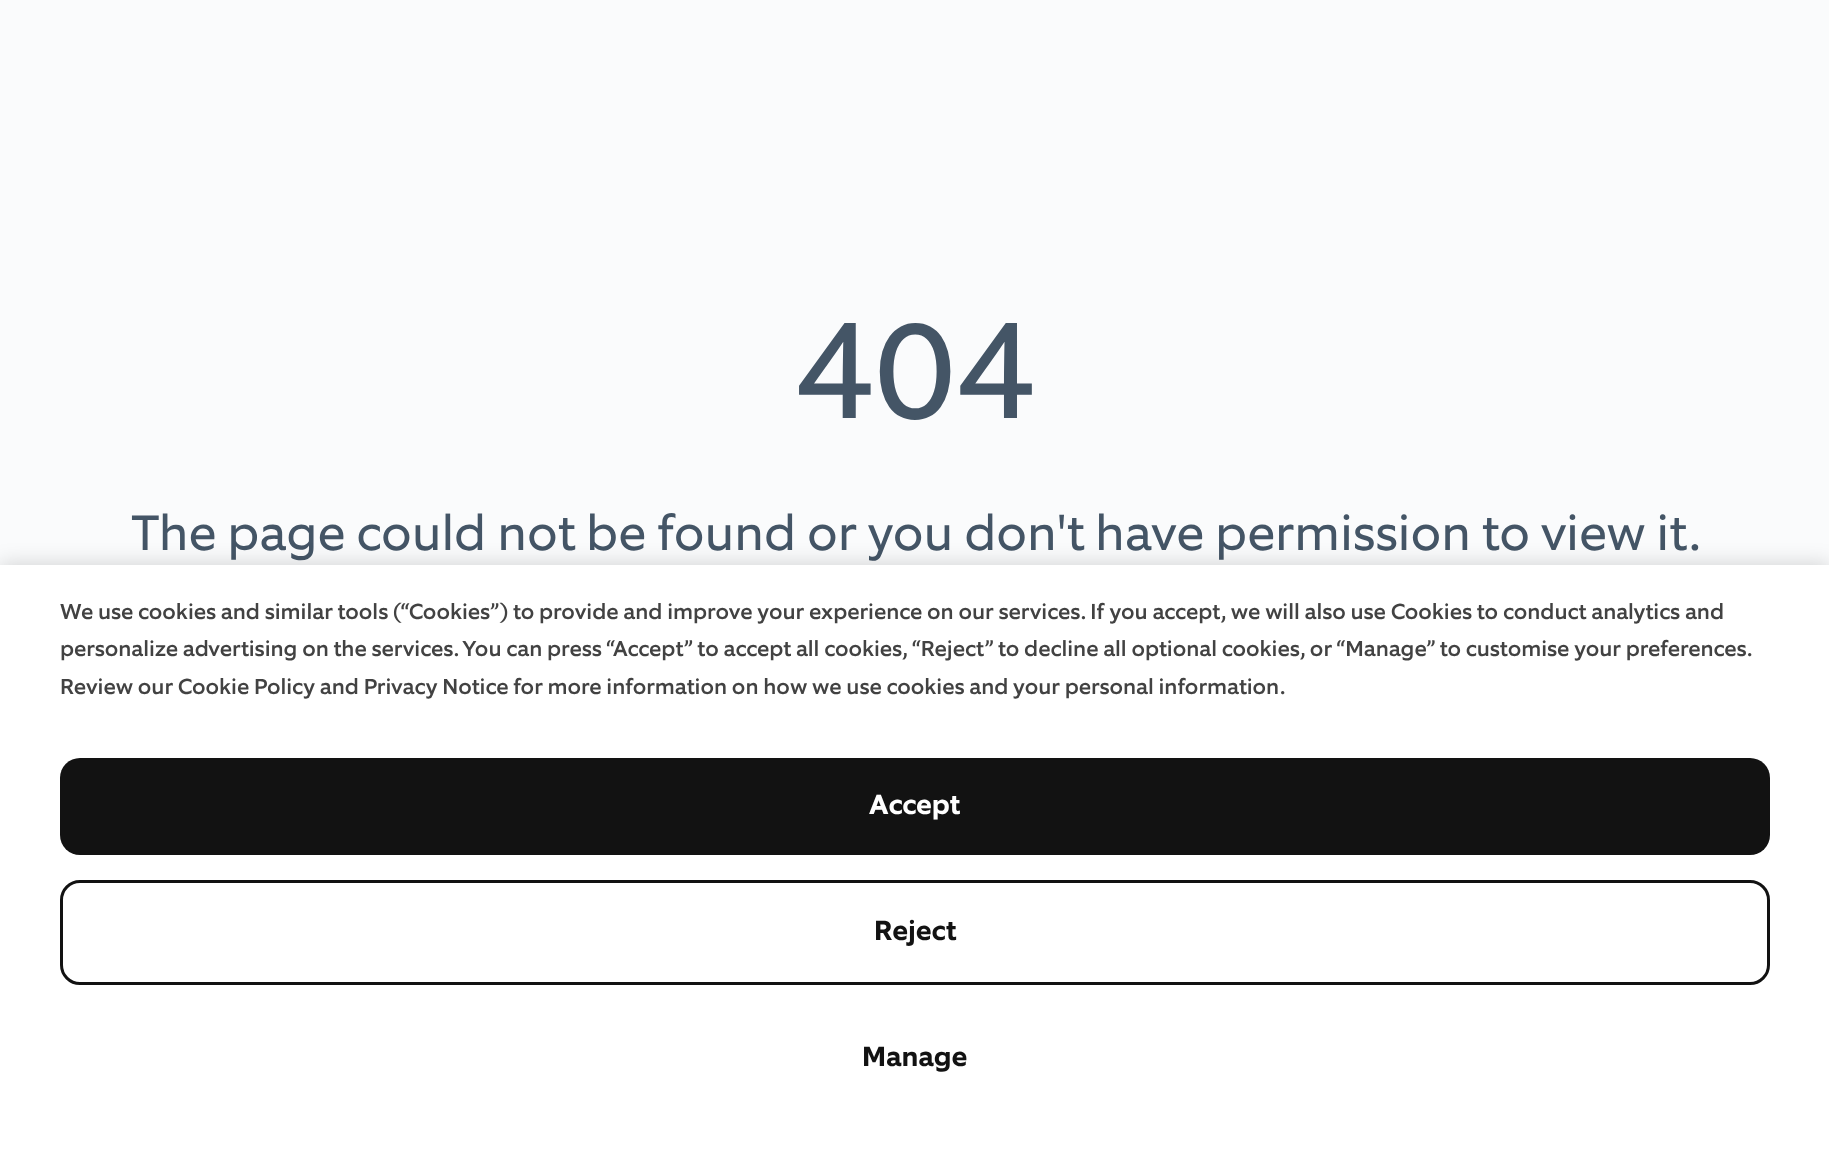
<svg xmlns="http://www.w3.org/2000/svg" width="1829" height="1161">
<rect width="100%" height="100%" fill="#fafbfc"/>
<text x="794" y="418" style="font-family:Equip;font-size:140px;fill:#456">404</text>
<text x="131" y="550" style="font-family:Equip;font-size:50px;fill:#456">The page could not be found or you don't have permission to view it.</text>
<rect y="563" width="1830" height="597" fill="#00000026" filter="blur(10px)"/>
<rect y="565" width="1829" height="596" fill="#fff"/>
<text x="60" y="619" style="font-family:Equip;font-size:21.88px;font-weight:500;fill:#424242">We use cookies and similar tools (“Cookies”) to provide and improve your experience on our services. If you accept, we will also use Cookies to conduct analytics and</text>
<text x="60" y="656" style="font-family:Equip;font-size:21.88px;font-weight:500;fill:#424242">personalize advertising on the services. You can press “Accept” to accept all cookies, “Reject” to decline all optional cookies, or “Manage” to customise your preferences.</text>
<text x="60" y="694" style="font-family:Equip;font-size:21.88px;font-weight:500;fill:#424242">Review our Cookie Policy and Privacy Notice for more information on how we use cookies and your personal information.</text>
<rect x="60" y="758" width="1710" height="97" rx="20" fill="#121212"/>
<text x="869" y="814" style="font-family:Equip;font-size:28px;font-weight:bold;fill:#fff">Accept</text>
<rect x="61.5" y="881.5" width="1707" height="102" rx="18.5" fill="none" stroke="#121212" stroke-width="3"/>
<text x="874" y="940" style="font-family:Equip;font-size:28px;font-weight:bold;fill:#121212">Reject</text>
<text x="862" y="1066" style="font-family:Equip;font-size:28px;font-weight:bold;fill:#121212">Manage</text>
</svg>
